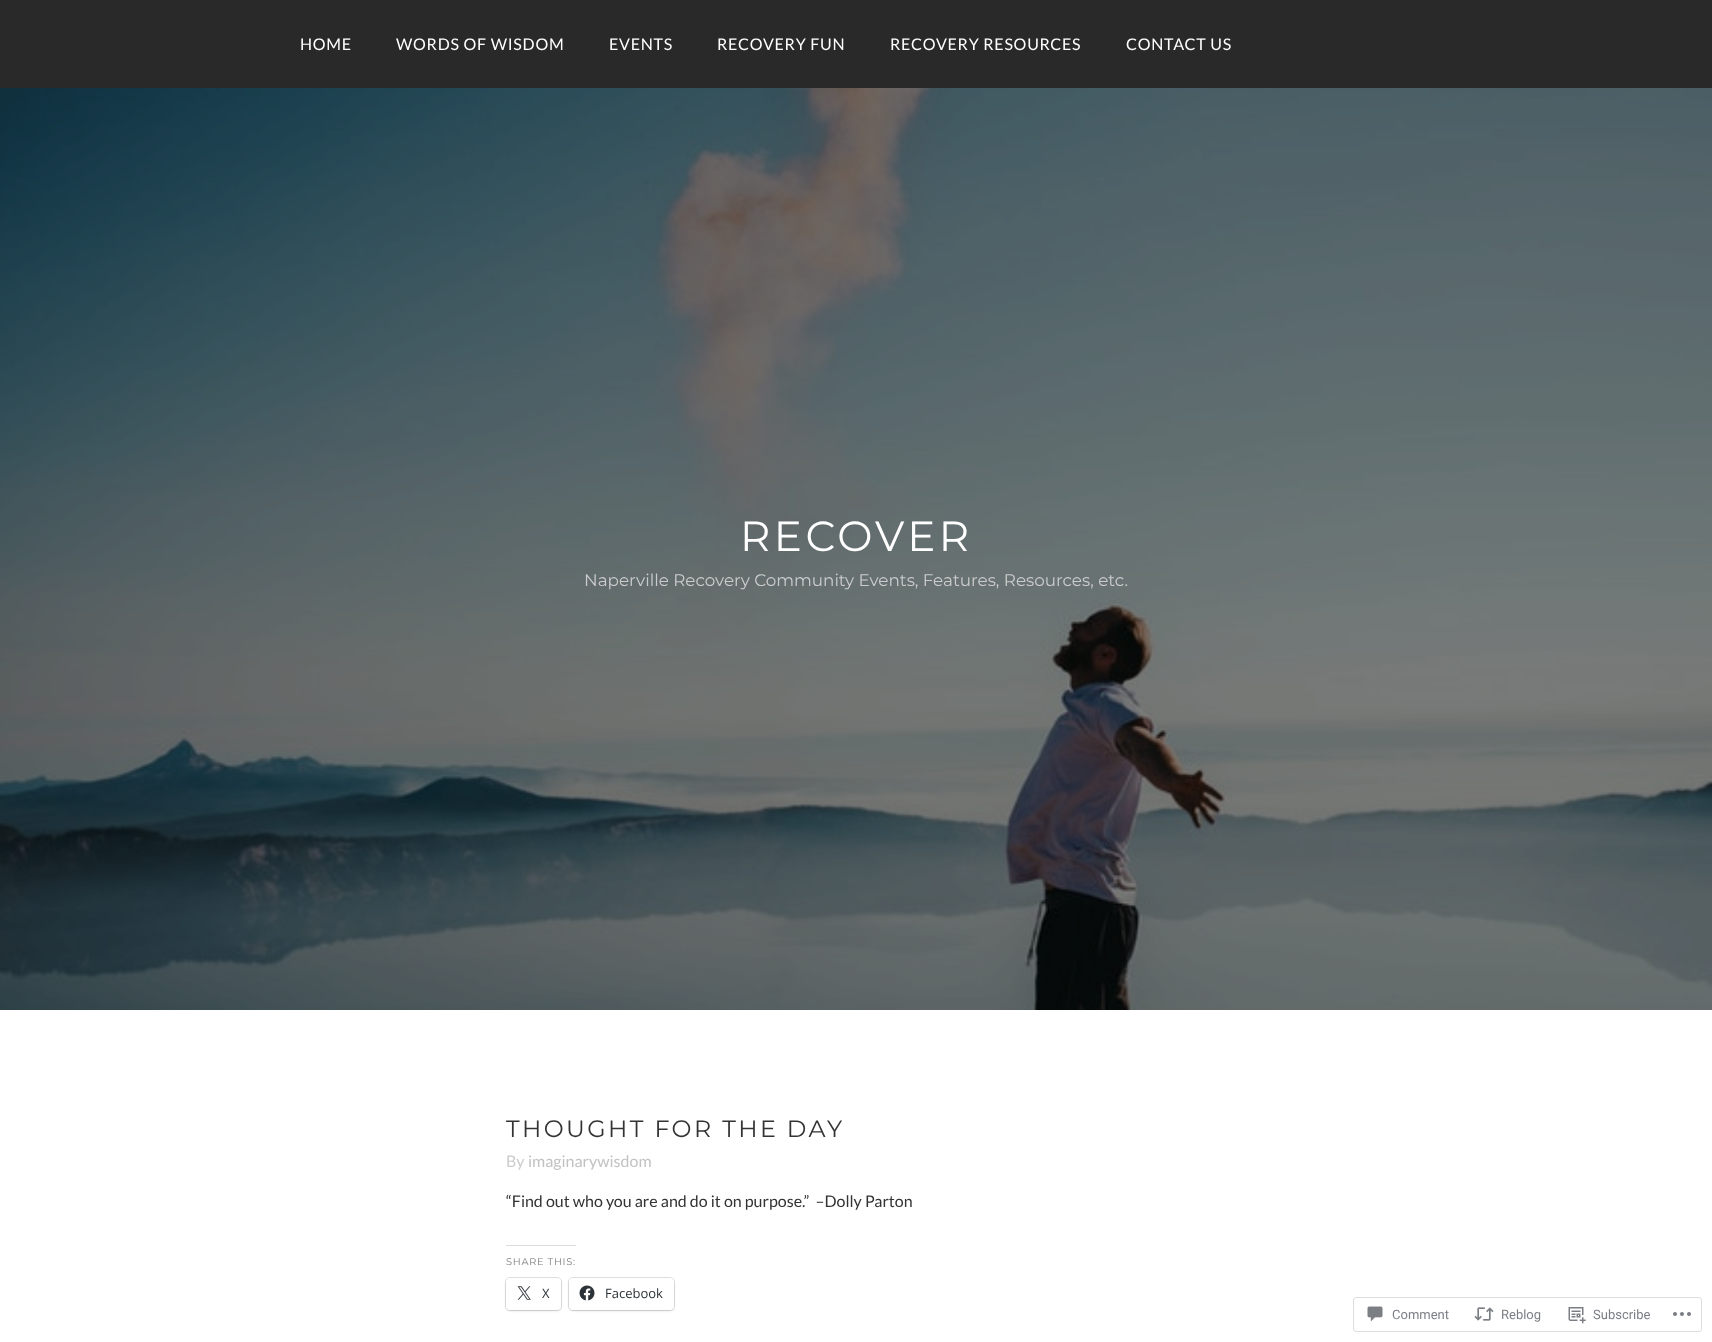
<svg xmlns="http://www.w3.org/2000/svg" width="1712" height="1342">
<rect width="100%" height="100%" fill="#fff"/>
<rect width="1712" height="88" fill="#29292a"/>
<text x="300" y="50" style="font-family:Lato;font-size:16px;letter-spacing:0.75px;fill:#fff">HOME</text>
<text x="396" y="50" style="font-family:Lato;font-size:16px;letter-spacing:0.75px;fill:#fff">WORDS OF WISDOM</text>
<text x="609" y="50" style="font-family:Lato;font-size:16px;letter-spacing:0.75px;fill:#fff">EVENTS</text>
<text x="717" y="50" style="font-family:Lato;font-size:16px;letter-spacing:0.75px;fill:#fff">RECOVERY FUN</text>
<text x="890" y="50" style="font-family:Lato;font-size:16px;letter-spacing:0.75px;fill:#fff">RECOVERY RESOURCES</text>
<text x="1126" y="50" style="font-family:Lato;font-size:16px;letter-spacing:0.75px;fill:#fff">CONTACT US</text>
<image x="0" y="88" width="1712" height="922" href="media/1.png"/>
<text x="740" y="551" style="font-family:Montserrat;font-size:42px;font-weight:100;letter-spacing:3.5px;fill:#fff">RECOVER</text>
<text x="584" y="586" style="font-family:Montserrat;font-size:16.8px;font-weight:100;fill:#ccc">Naperville Recovery Community Events, Features, Resources, etc.</text>
<text x="506" y="1137" style="font-family:Montserrat;font-size:23.75px;font-weight:100;letter-spacing:2.4px;fill:#333">THOUGHT FOR THE DAY</text>
<text x="506" y="1167" style="font-family:Lato;font-size:16px;fill:#ccc">By</text>
<text x="528" y="1167" style="font-family:Lato;font-size:16px;fill:#c2c2c2">imaginarywisdom</text>
<text x="506" y="1207" style="font-family:Lato;font-size:16px;fill:#333" xml:space="preserve">“Find out who you are and do it on purpose.”  –Dolly Parton</text>
<rect x="506" y="1245" width="70" height="1" fill="#dcdcde"/>
<text x="506" y="1265" style="font-family:Montserrat;font-size:9.75px;font-weight:100;letter-spacing:0.75px;fill:#7c7c7c">SHARE THIS:</text>
<rect x="505.5" y="1277.5" width="56" height="33" rx="4.5" fill="none" stroke="#e0e0e0"/>
<rect x="506" y="1279" width="55" height="32" rx="4" fill="#0000001f" filter="blur(1px)"/>
<rect x="506" y="1278" width="55" height="32" rx="4" fill="#fff"/>
<image x="517" y="1286" width="14" height="14" href="media/2.png"/>
<text x="542" y="1298" style="font-family:Open Sans;font-size:13px;fill:#2c3338">X</text>
<rect x="568.5" y="1277.5" width="106" height="33" rx="4.5" fill="none" stroke="#e0e0e0"/>
<rect x="569" y="1279" width="105" height="32" rx="4" fill="#0000001f" filter="blur(1px)"/>
<rect x="569" y="1278" width="105" height="32" rx="4" fill="#fff"/>
<image x="579" y="1285" width="16" height="16" href="media/3.png"/>
<text x="605" y="1298" style="font-family:Open Sans;font-size:13px;fill:#2c3338">Facebook</text>
<rect x="1353.5" y="1297.5" width="348" height="34" rx="2.5" fill="none" stroke="#dddddf"/>
<image x="1367" y="1306" width="16" height="16" href="media/4.png"/>
<text x="1392" y="1319" style="font-family:Roboto;font-size:13px;fill:#7b7f85">Comment</text>
<image x="1474" y="1307" width="20" height="14" href="media/5.png"/>
<text x="1501" y="1319" style="font-family:Roboto;font-size:13px;fill:#7b7f85">Reblog</text>
<image x="1568" y="1307" width="18" height="17" href="media/6.png"/>
<text x="1593" y="1319" style="font-family:Roboto;font-size:13px;fill:#7b7f85">Subscribe</text>
<image x="1673" y="1312" width="18" height="4" href="media/7.png"/>
</svg>
